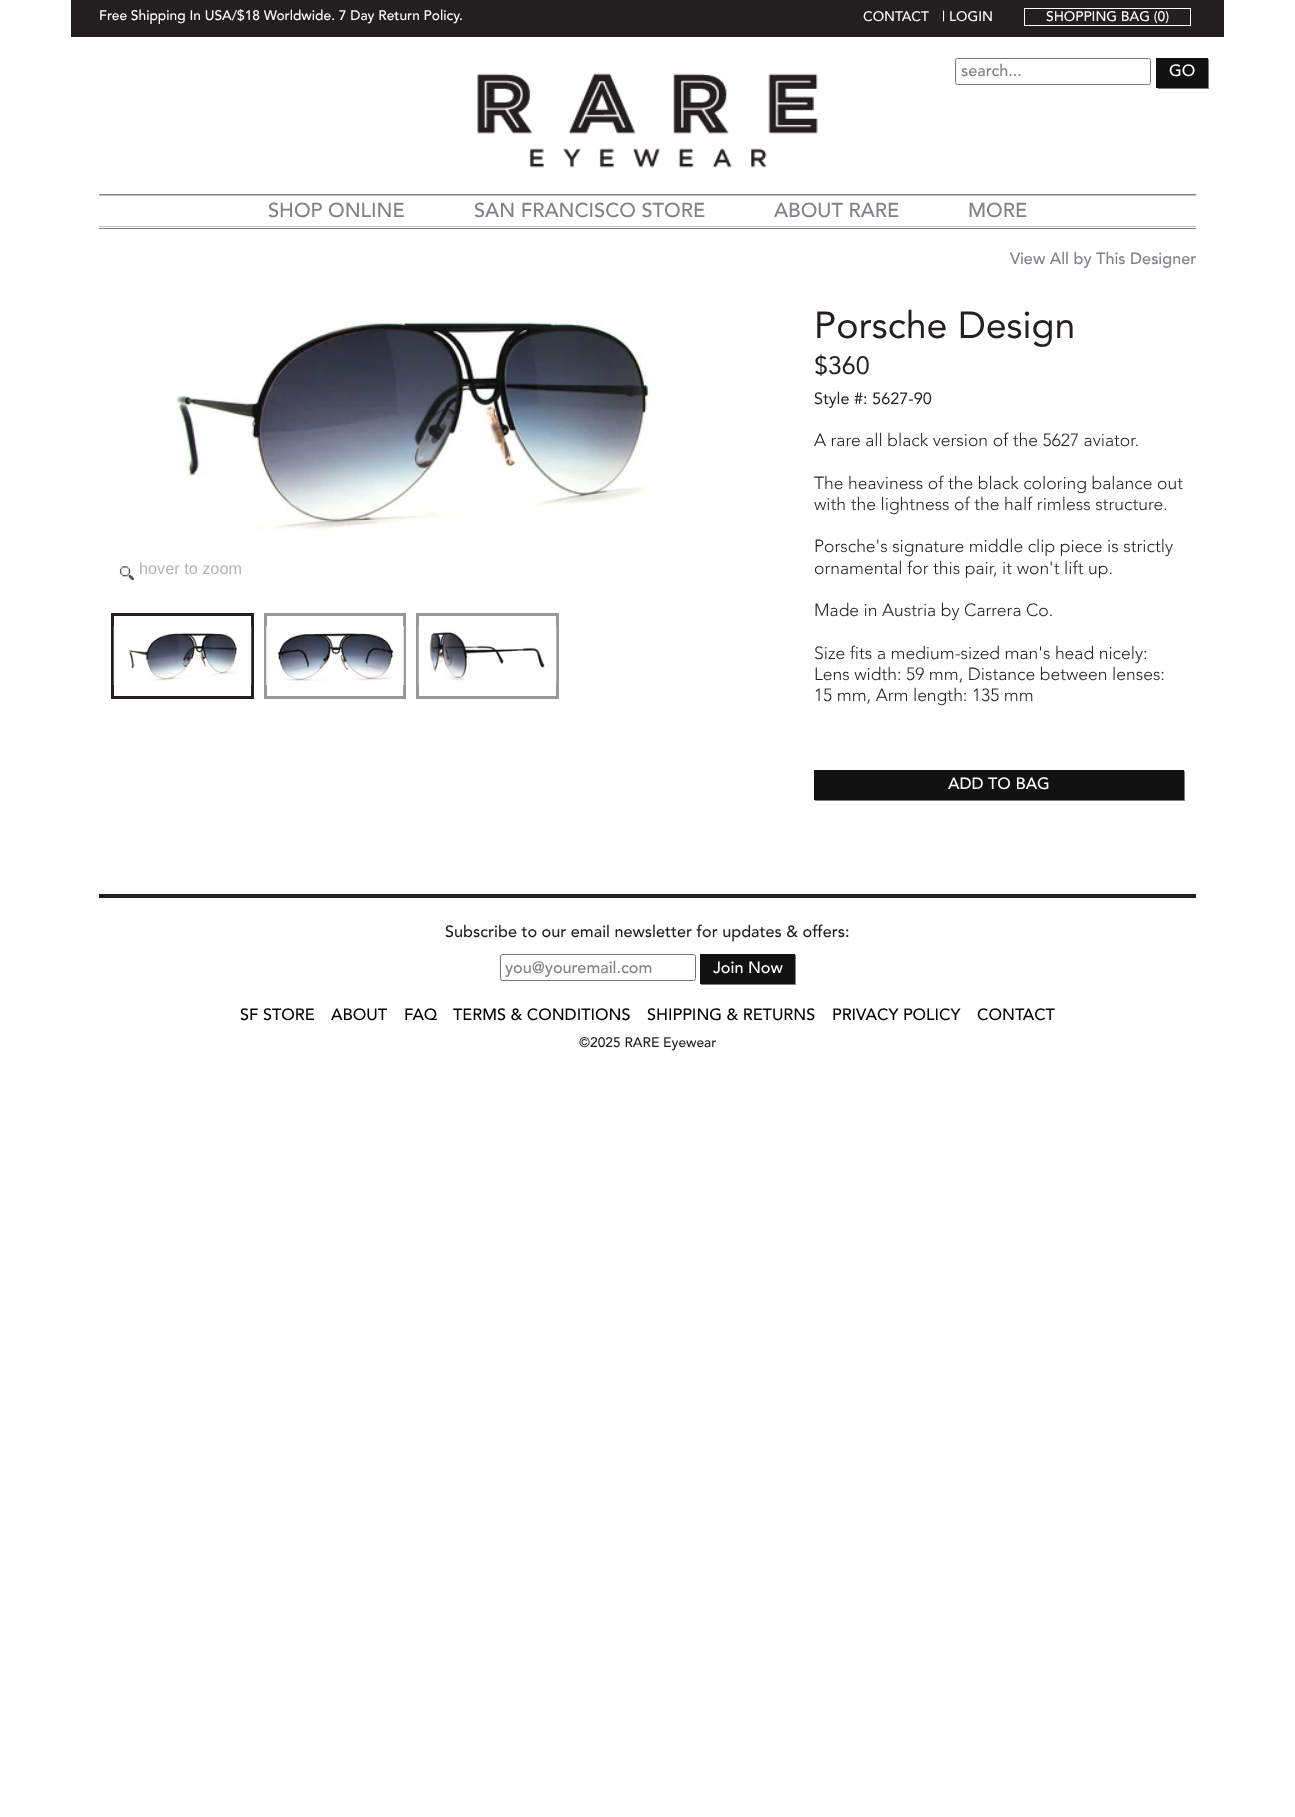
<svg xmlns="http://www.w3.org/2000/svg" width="1295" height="1817">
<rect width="100%" height="100%" fill="#fff"/>
<rect x="71" width="1153" height="37" fill="#231f20"/>
<text x="99" y="20" style="font-family:'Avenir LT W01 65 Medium';font-size:13.75px;font-weight:500;fill:#fff">Free Shipping In USA/$18 Worldwide. 7 Day Return Policy.</text>
<text x="863" y="21" style="font-family:'Avenir LT W01 65 Medium';font-size:13.75px;font-weight:500;fill:#fff">CONTACT</text>
<text x="942" y="21" style="font-family:'Avenir LT W01 65 Medium';font-size:13.75px;font-weight:500;fill:#fff">| LOGIN</text>
<rect x="1024.5" y="8.5" width="166" height="17" fill="none" stroke="#fff"/>
<text x="1046" y="21" style="font-family:'Avenir LT W01 65 Medium';font-size:13.75px;font-weight:500;fill:#fff">SHOPPING BAG (0)</text>
<rect x="955.5" y="58.5" width="195" height="26" rx="2" fill="none" stroke="#767676"/>
<text x="961" y="76" style="font-family:'Avenir LT W01 65 Medium';font-size:16.25px;font-weight:500;fill:#808285">search...</text>
<rect x="1158" y="59" width="51" height="30" fill="#00000080" filter="blur(0.5px)"/>
<rect x="1156" y="58" width="52" height="30" fill="#111"/>
<text x="1169" y="76" style="font-family:'Avenir LT W01 65 Medium';font-size:16.25px;font-weight:500;fill:#fff">GO</text>
<image x="477" y="73" width="341" height="95" href="media/1.png"/>
<rect x="99" y="194" width="1097" height="1" fill="#818285"/>
<rect x="99" y="228" width="1097" height="1" fill="#818285"/>
<rect x="99" y="195" width="1097" height="1" fill="#c0c0c2"/>
<rect x="99" y="226" width="1097" height="1" fill="#c0c0c2"/>
<text x="268" y="217" style="font-family:'Avenir LT W01 65 Medium';font-size:20px;font-weight:500;fill:#808285">SHOP ONLINE</text>
<text x="474" y="217" style="font-family:'Avenir LT W01 65 Medium';font-size:20px;font-weight:500;fill:#808285">SAN FRANCISCO STORE</text>
<text x="774" y="217" style="font-family:'Avenir LT W01 65 Medium';font-size:20px;font-weight:500;fill:#808285">ABOUT RARE</text>
<text x="968" y="217" style="font-family:'Avenir LT W01 65 Medium';font-size:20px;font-weight:500;fill:#808285">MORE</text>
<image x="176" y="321" width="475" height="210" href="media/2.png"/>
<image x="119" y="566" width="15" height="15" href="media/3.png"/>
<text x="139" y="574" style="font-family:Liberation Sans;font-size:16.25px;fill:#b3b3b3">hover to zoom</text>
<rect x="112.5" y="614.5" width="140" height="83" fill="none" stroke="#231f20" stroke-width="3"/>
<image x="113" y="626" width="139" height="59" href="media/4.png"/>
<rect x="265.5" y="614.5" width="139" height="83" fill="none" stroke="#999" stroke-width="3"/>
<image x="266" y="626" width="138" height="59" href="media/5.png"/>
<rect x="417.5" y="614.5" width="140" height="83" fill="none" stroke="#999" stroke-width="3"/>
<image x="418" y="626" width="139" height="59" href="media/6.png"/>
<text x="1010" y="264" style="font-family:'Avenir LT W01 65 Medium';font-size:16.25px;font-weight:500;fill:#808285">View All by This Designer</text>
<text x="814" y="338" style="font-family:'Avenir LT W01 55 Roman';font-size:37.5px;fill:#231f20">Porsche Design</text>
<text x="814" y="374" style="font-family:'Avenir LT W01 55 Roman';font-size:25px;fill:#231f20">$360</text>
<text x="814" y="404" style="font-family:'Avenir LT W01 55 Roman';font-size:16.25px;fill:#231f20">Style #: 5627-90</text>
<text x="814" y="446" style="font-family:'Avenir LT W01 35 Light';font-size:17.5px;font-weight:300;fill:#231f20">A rare all black version of the 5627 aviator.</text>
<text x="814" y="489" style="font-family:'Avenir LT W01 35 Light';font-size:17.5px;font-weight:300;fill:#231f20">The heaviness of the black coloring balance out</text>
<text x="814" y="510" style="font-family:'Avenir LT W01 35 Light';font-size:17.5px;font-weight:300;fill:#231f20">with the lightness of the half rimless structure.</text>
<text x="814" y="552" style="font-family:'Avenir LT W01 35 Light';font-size:17.5px;font-weight:300;fill:#231f20">Porsche's signature middle clip piece is strictly</text>
<text x="814" y="574" style="font-family:'Avenir LT W01 35 Light';font-size:17.5px;font-weight:300;fill:#231f20">ornamental for this pair, it won't lift up.</text>
<text x="814" y="616" style="font-family:'Avenir LT W01 35 Light';font-size:17.5px;font-weight:300;fill:#231f20">Made in Austria by Carrera Co.</text>
<text x="814" y="659" style="font-family:'Avenir LT W01 35 Light';font-size:17.5px;font-weight:300;fill:#231f20">Size fits a medium-sized man's head nicely:</text>
<text x="814" y="680" style="font-family:'Avenir LT W01 35 Light';font-size:17.5px;font-weight:300;fill:#231f20">Lens width: 59 mm, Distance between lenses:</text>
<text x="814" y="701" style="font-family:'Avenir LT W01 35 Light';font-size:17.5px;font-weight:300;fill:#231f20">15 mm, Arm length: 135 mm</text>
<rect x="815" y="771" width="370" height="30" fill="#00000080" filter="blur(0.5px)"/>
<rect x="814" y="770" width="370" height="30" fill="#111"/>
<text x="948" y="789" style="font-family:'Avenir LT W01 65 Medium';font-size:16.25px;font-weight:500;fill:#fff">ADD TO BAG</text>
<rect x="99" y="894" width="1097" height="4" fill="#231f20"/>
<text x="445" y="937" style="font-family:'Avenir LT W01 65 Medium';font-size:16.25px;font-weight:500;fill:#231f20">Subscribe to our email newsletter for updates &amp; offers:</text>
<rect x="500.5" y="954.5" width="195" height="26" rx="2" fill="none" stroke="#767676"/>
<text x="505" y="973" style="font-family:'Avenir LT W01 65 Medium';font-size:16.25px;font-weight:500;fill:#808285">you@youremail.com</text>
<rect x="701" y="955" width="95" height="30" fill="#00000080" filter="blur(0.5px)"/>
<rect x="700" y="954" width="95" height="30" fill="#111"/>
<text x="713" y="973" style="font-family:'Avenir LT W01 65 Medium';font-size:16.25px;font-weight:500;fill:#fff">Join Now</text>
<text x="240" y="1020" style="font-family:'Avenir LT W01 65 Medium';font-size:16.25px;font-weight:500;fill:#000">SF STORE</text>
<text x="331" y="1020" style="font-family:'Avenir LT W01 65 Medium';font-size:16.25px;font-weight:500;fill:#000">ABOUT</text>
<text x="404" y="1020" style="font-family:'Avenir LT W01 65 Medium';font-size:16.25px;font-weight:500;fill:#000">FAQ</text>
<text x="453" y="1020" style="font-family:'Avenir LT W01 65 Medium';font-size:16.25px;font-weight:500;fill:#000">TERMS &amp; CONDITIONS</text>
<text x="647" y="1020" style="font-family:'Avenir LT W01 65 Medium';font-size:16.25px;font-weight:500;fill:#000">SHIPPING &amp; RETURNS</text>
<text x="832" y="1020" style="font-family:'Avenir LT W01 65 Medium';font-size:16.25px;font-weight:500;fill:#000">PRIVACY POLICY</text>
<text x="977" y="1020" style="font-family:'Avenir LT W01 65 Medium';font-size:16.25px;font-weight:500;fill:#000">CONTACT</text>
<text x="579" y="1047" style="font-family:'Avenir LT W01 65 Medium';font-size:13.75px;font-weight:500;fill:#231f20">©2025 RARE Eyewear</text>
</svg>
